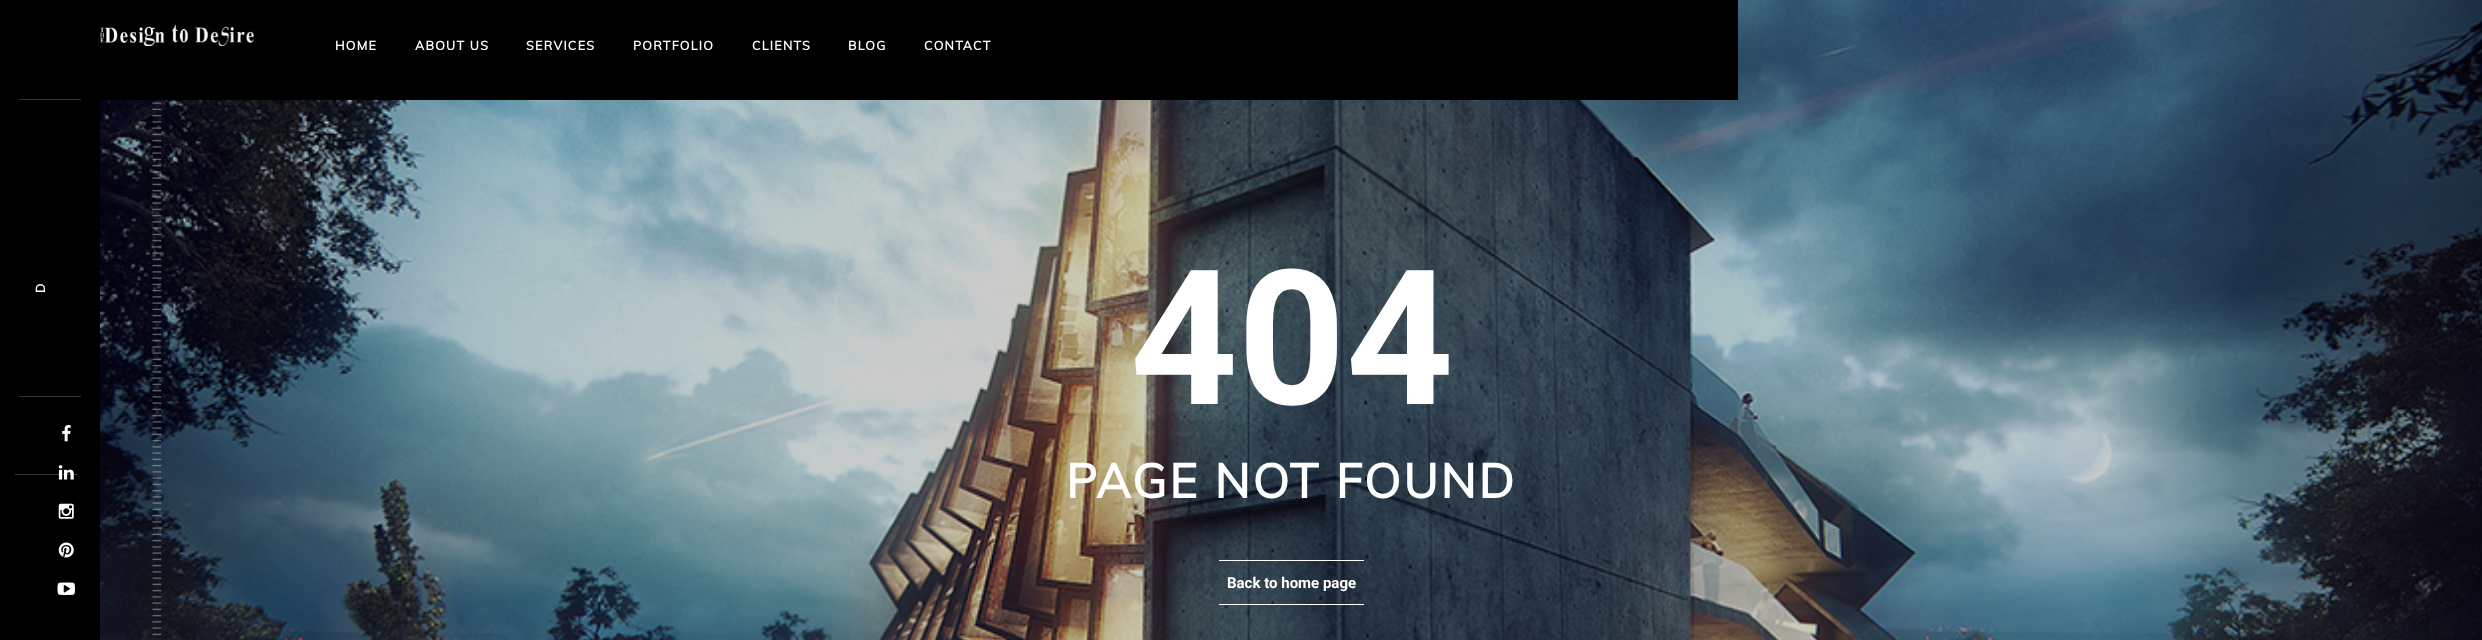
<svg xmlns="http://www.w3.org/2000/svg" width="2482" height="640">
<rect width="100%" height="100%" fill="#fff"/>
<image x="100" y="0" width="2382" height="640" href="media/8.png"/>
<rect width="1738" height="100" fill="#000"/>
<image x="100" y="25" width="154" height="21" href="media/1.png"/>
<text x="335" y="50" style="font-family:Muli;font-size:12.5px;font-weight:bold;letter-spacing:1.25px;fill:#fff">HOME</text>
<text x="415" y="50" style="font-family:Muli;font-size:12.5px;font-weight:bold;letter-spacing:1.25px;fill:#fff">ABOUT US</text>
<text x="526" y="50" style="font-family:Muli;font-size:12.5px;font-weight:bold;letter-spacing:1.25px;fill:#fff">SERVICES</text>
<text x="633" y="50" style="font-family:Muli;font-size:12.5px;font-weight:bold;letter-spacing:1.25px;fill:#fff">PORTFOLIO</text>
<text x="752" y="50" style="font-family:Muli;font-size:12.5px;font-weight:bold;letter-spacing:1.25px;fill:#fff">CLIENTS</text>
<text x="848" y="50" style="font-family:Muli;font-size:12.5px;font-weight:bold;letter-spacing:1.25px;fill:#fff">BLOG</text>
<text x="924" y="50" style="font-family:Muli;font-size:12.5px;font-weight:bold;letter-spacing:1.25px;fill:#fff">CONTACT</text>
<rect x="19" y="99" width="62" height="1" fill="#363636"/>
<rect y="100" width="100" height="540" fill="#000"/>
<text x="45" y="293" transform="rotate(-90 45 293)" style="font-family:Muli;font-size:12.5px;font-weight:bold;letter-spacing:1.25px;fill:#fff">D</text>
<image x="58" y="465" width="16" height="15" href="media/3.png"/>
<rect x="15" y="474" width="63" height="1" fill="#ffffff36"/>
<rect x="19" y="396" width="62" height="1" fill="#363636"/>
<image x="62" y="425" width="9" height="17" href="media/2.png"/>
<image x="58" y="503" width="16" height="16" href="media/4.png"/>
<image x="58" y="542" width="16" height="16" href="media/5.png"/>
<image x="57" y="582" width="18" height="13" href="media/6.png"/>
<image x="152" y="102" width="10" height="538" href="media/7.png"/>
<text x="1130" y="404" style="font-family:Roboto;font-size:188px;font-weight:bold;fill:#fff">404</text>
<text x="1066" y="498" style="font-family:Muli;font-size:47.5px;font-weight:bold;letter-spacing:2.5px;fill:#fff">PAGE NOT FOUND</text>
<rect x="1219" y="560" width="145" height="1" fill="#fff"/>
<rect x="1219" y="604" width="145" height="1" fill="#fff"/>
<text x="1227" y="588" style="font-family:Roboto;font-size:15px;font-weight:bold;fill:#fff">Back to home page</text>
</svg>
